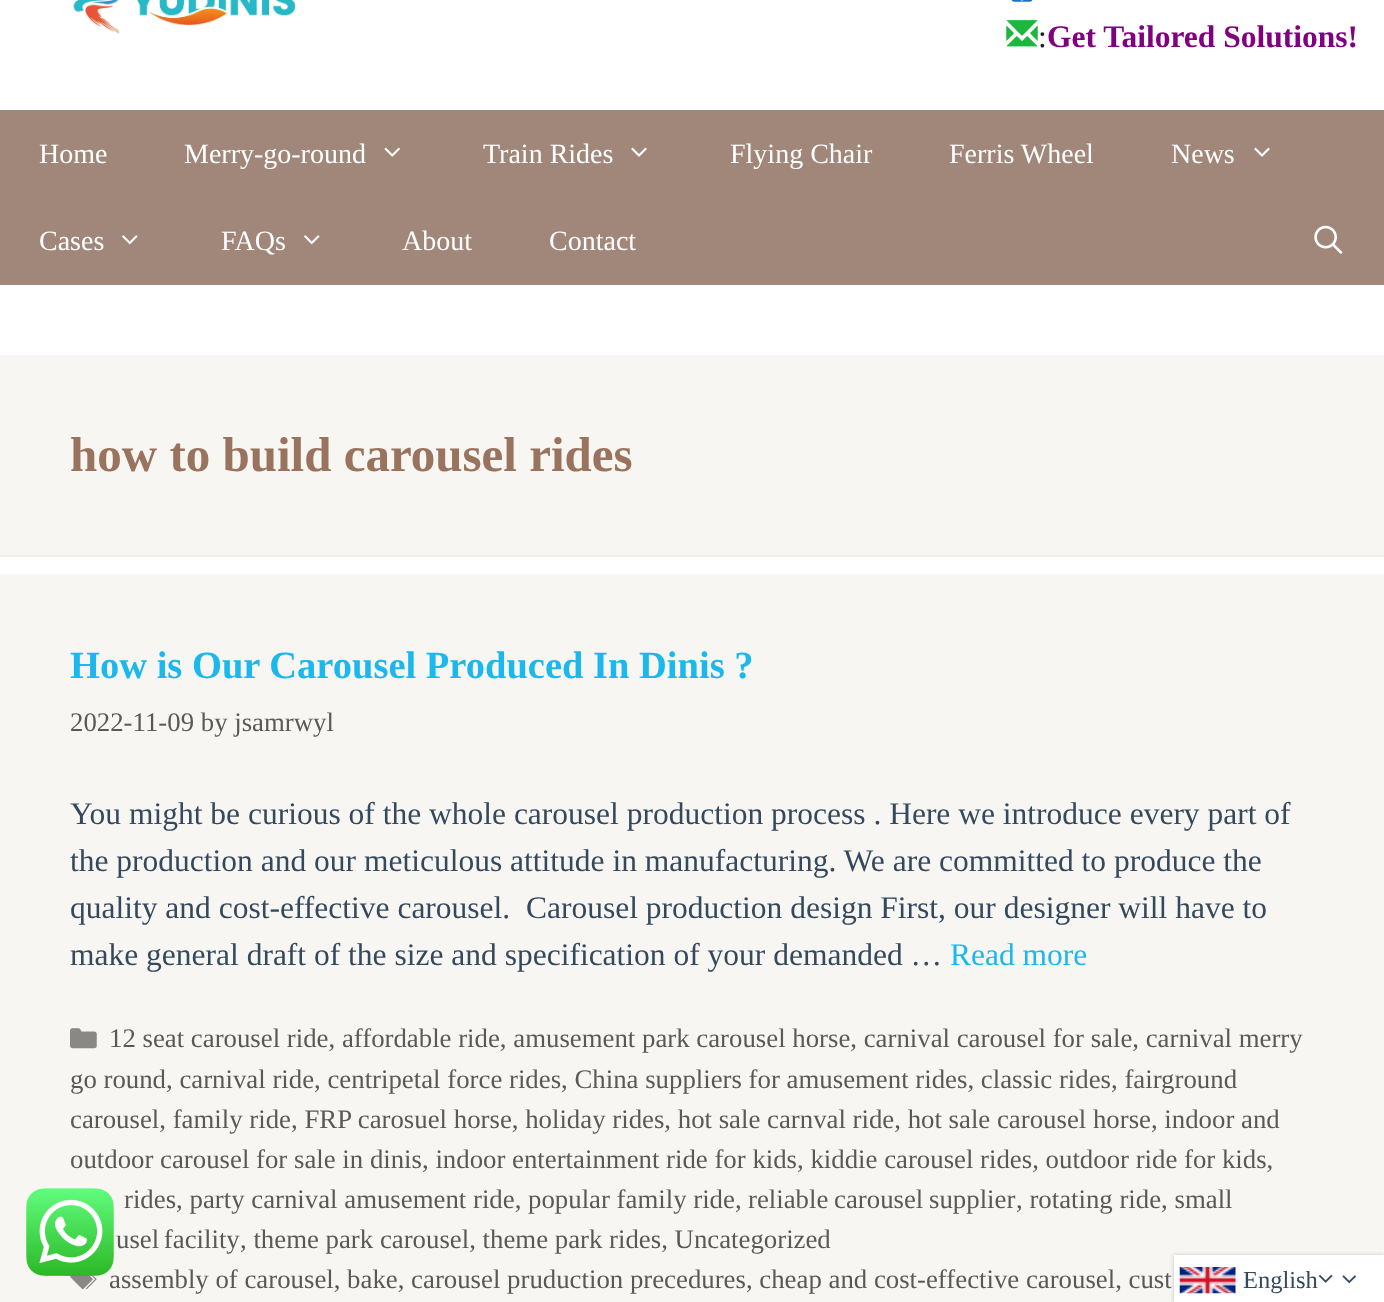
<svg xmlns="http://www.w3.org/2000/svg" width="1384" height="1302">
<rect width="100%" height="100%" fill="#fff"/>
<image x="73" y="0" width="223" height="34" href="media/1.png"/>
<image x="1011" y="0" width="22" height="2" href="media/2.png"/>
<image x="1006" y="20" width="32" height="27" href="media/3.png"/>
<text x="1038" y="47" style="font-family:Liberation Serif;font-size:31.5px;fill:#222">:</text>
<text x="1047" y="47" style="font-family:Liberation Serif;font-size:31.5px;font-weight:bold;fill:#800080">Get Tailored Solutions!</text>
<rect y="110" width="1384" height="175" fill="#a18779"/>
<text x="39" y="163" style="font-family:Liberation Serif;font-size:28px;fill:#fff">Home</text>
<text x="184" y="163" style="font-family:Liberation Serif;font-size:28px;fill:#fff">Merry-go-round</text>
<image x="384" y="147" width="16" height="10" href="media/4.png"/>
<text x="483" y="163" style="font-family:Liberation Serif;font-size:28px;fill:#fff">Train Rides</text>
<image x="631" y="147" width="16" height="10" href="media/5.png"/>
<text x="730" y="163" style="font-family:Liberation Serif;font-size:28px;fill:#fff">Flying Chair</text>
<text x="949" y="163" style="font-family:Liberation Serif;font-size:28px;fill:#fff">Ferris Wheel</text>
<text x="1171" y="163" style="font-family:Liberation Serif;font-size:28px;fill:#fff">News</text>
<image x="1254" y="147" width="16" height="10" href="media/5.png"/>
<text x="39" y="250" style="font-family:Liberation Serif;font-size:28px;fill:#fff">Cases</text>
<image x="122" y="235" width="16" height="10" href="media/6.png"/>
<text x="221" y="250" style="font-family:Liberation Serif;font-size:28px;fill:#fff">FAQs</text>
<image x="304" y="235" width="16" height="10" href="media/6.png"/>
<text x="402" y="250" style="font-family:Liberation Serif;font-size:28px;fill:#fff">About</text>
<text x="549" y="250" style="font-family:Liberation Serif;font-size:28px;fill:#fff">Contact</text>
<image x="1314" y="225" width="29" height="29" href="media/7.png"/>
<rect y="355" width="1384" height="200" fill="#f8f6f2"/>
<rect y="555" width="1384" height="2" fill="#eee"/>
<text x="70" y="471" style="font-family:Liberation Serif;font-size:49px;font-weight:bold;fill:#99735e">how to build carousel rides</text>
<rect y="574" width="1384" height="728" fill="#f8f6f2"/>
<text x="70" y="678" style="font-family:Liberation Serif;font-size:38.5px;font-weight:bold;fill:#1ab8ed">How is Our Carousel Produced In Dinis ?</text>
<text x="70" y="731" style="font-family:Liberation Serif;font-size:26.8px;fill:#595959">2022-11-09 by jsamrwyl</text>
<text x="70" y="824" style="font-family:Liberation Serif;font-size:31.5px;fill:#34495e">You might be curious of the whole carousel production process . Here we introduce every part of</text>
<text x="70" y="871" style="font-family:Liberation Serif;font-size:31.5px;fill:#34495e">the production and our meticulous attitude in manufacturing. We are committed to produce the</text>
<text x="70" y="918" style="font-family:Liberation Serif;font-size:31.5px;fill:#34495e" xml:space="preserve">quality and cost-effective carousel.  Carousel production design First, our designer will have to</text>
<text x="70" y="965" style="font-family:Liberation Serif;font-size:31.5px;fill:#34495e">make general draft of the size and specification of your demanded …</text>
<text x="950" y="965" style="font-family:Liberation Serif;font-size:31.5px;fill:#1ab8ed">Read more</text>
<image x="70" y="1028" width="27" height="21" href="media/8.png"/>
<text x="109" y="1047" style="font-family:Liberation Serif;font-size:26.8px;fill:#595959">12 seat carousel ride, affordable ride, amusement park carousel horse, carnival carousel for sale, carnival merry</text>
<text x="70" y="1088" style="font-family:Liberation Serif;font-size:26.8px;fill:#595959">go round, carnival ride, centripetal force rides, China suppliers for amusement rides, classic rides, fairground</text>
<text x="70" y="1128" style="font-family:Liberation Serif;font-size:26.8px;fill:#595959">carousel, family ride, FRP carosuel horse, holiday rides, hot sale carnval ride, hot sale carousel horse, indoor and</text>
<text x="70" y="1168" style="font-family:Liberation Serif;font-size:26.8px;fill:#595959">outdoor carousel for sale in dinis, indoor entertainment ride for kids, kiddie carousel rides, outdoor ride for kids,</text>
<text x="124" y="1208" style="font-family:Liberation Serif;font-size:26.8px;fill:#595959">rides, party carnival amusement ride, popular family ride,</text>
<text x="748" y="1208" word-spacing="-1" style="font-family:Liberation Serif;font-size:26.8px;fill:#595959">reliable carousel supplier</text>
<text x="1016" y="1208" style="font-family:Liberation Serif;font-size:26.8px;fill:#595959">, rotating ride, small</text>
<text x="116" y="1248" word-spacing="-2" style="font-family:Liberation Serif;font-size:26.8px;fill:#595959">usel facility</text>
<text x="240" y="1248" style="font-family:Liberation Serif;font-size:26.8px;fill:#595959">, theme park carousel, theme park rides, Uncategorized</text>
<image x="70" y="1275" width="27" height="15" href="media/9.png"/>
<text x="109" y="1288" style="font-family:Liberation Serif;font-size:26.8px;fill:#595959">assembly of carousel, bake, carousel pruduction precedures, cheap and cost-effective carousel, cust</text>
<image x="26" y="1188" width="88" height="88" href="media/10.png"/>
<rect x="1174" y="1255" width="210" height="47" fill="#00000033" filter="blur(2px)"/>
<rect x="1174" y="1255" width="210" height="47" fill="#fff"/>
<image x="1179" y="1267" width="57" height="27" href="media/11.png"/>
<text x="1243" y="1288" style="font-family:Liberation Serif;font-size:24.5px;fill:#34495e">English</text>
<image x="1318" y="1274" width="15" height="9" href="media/12.png"/>
<image x="1342" y="1275" width="14" height="9" href="media/13.png"/>
</svg>
